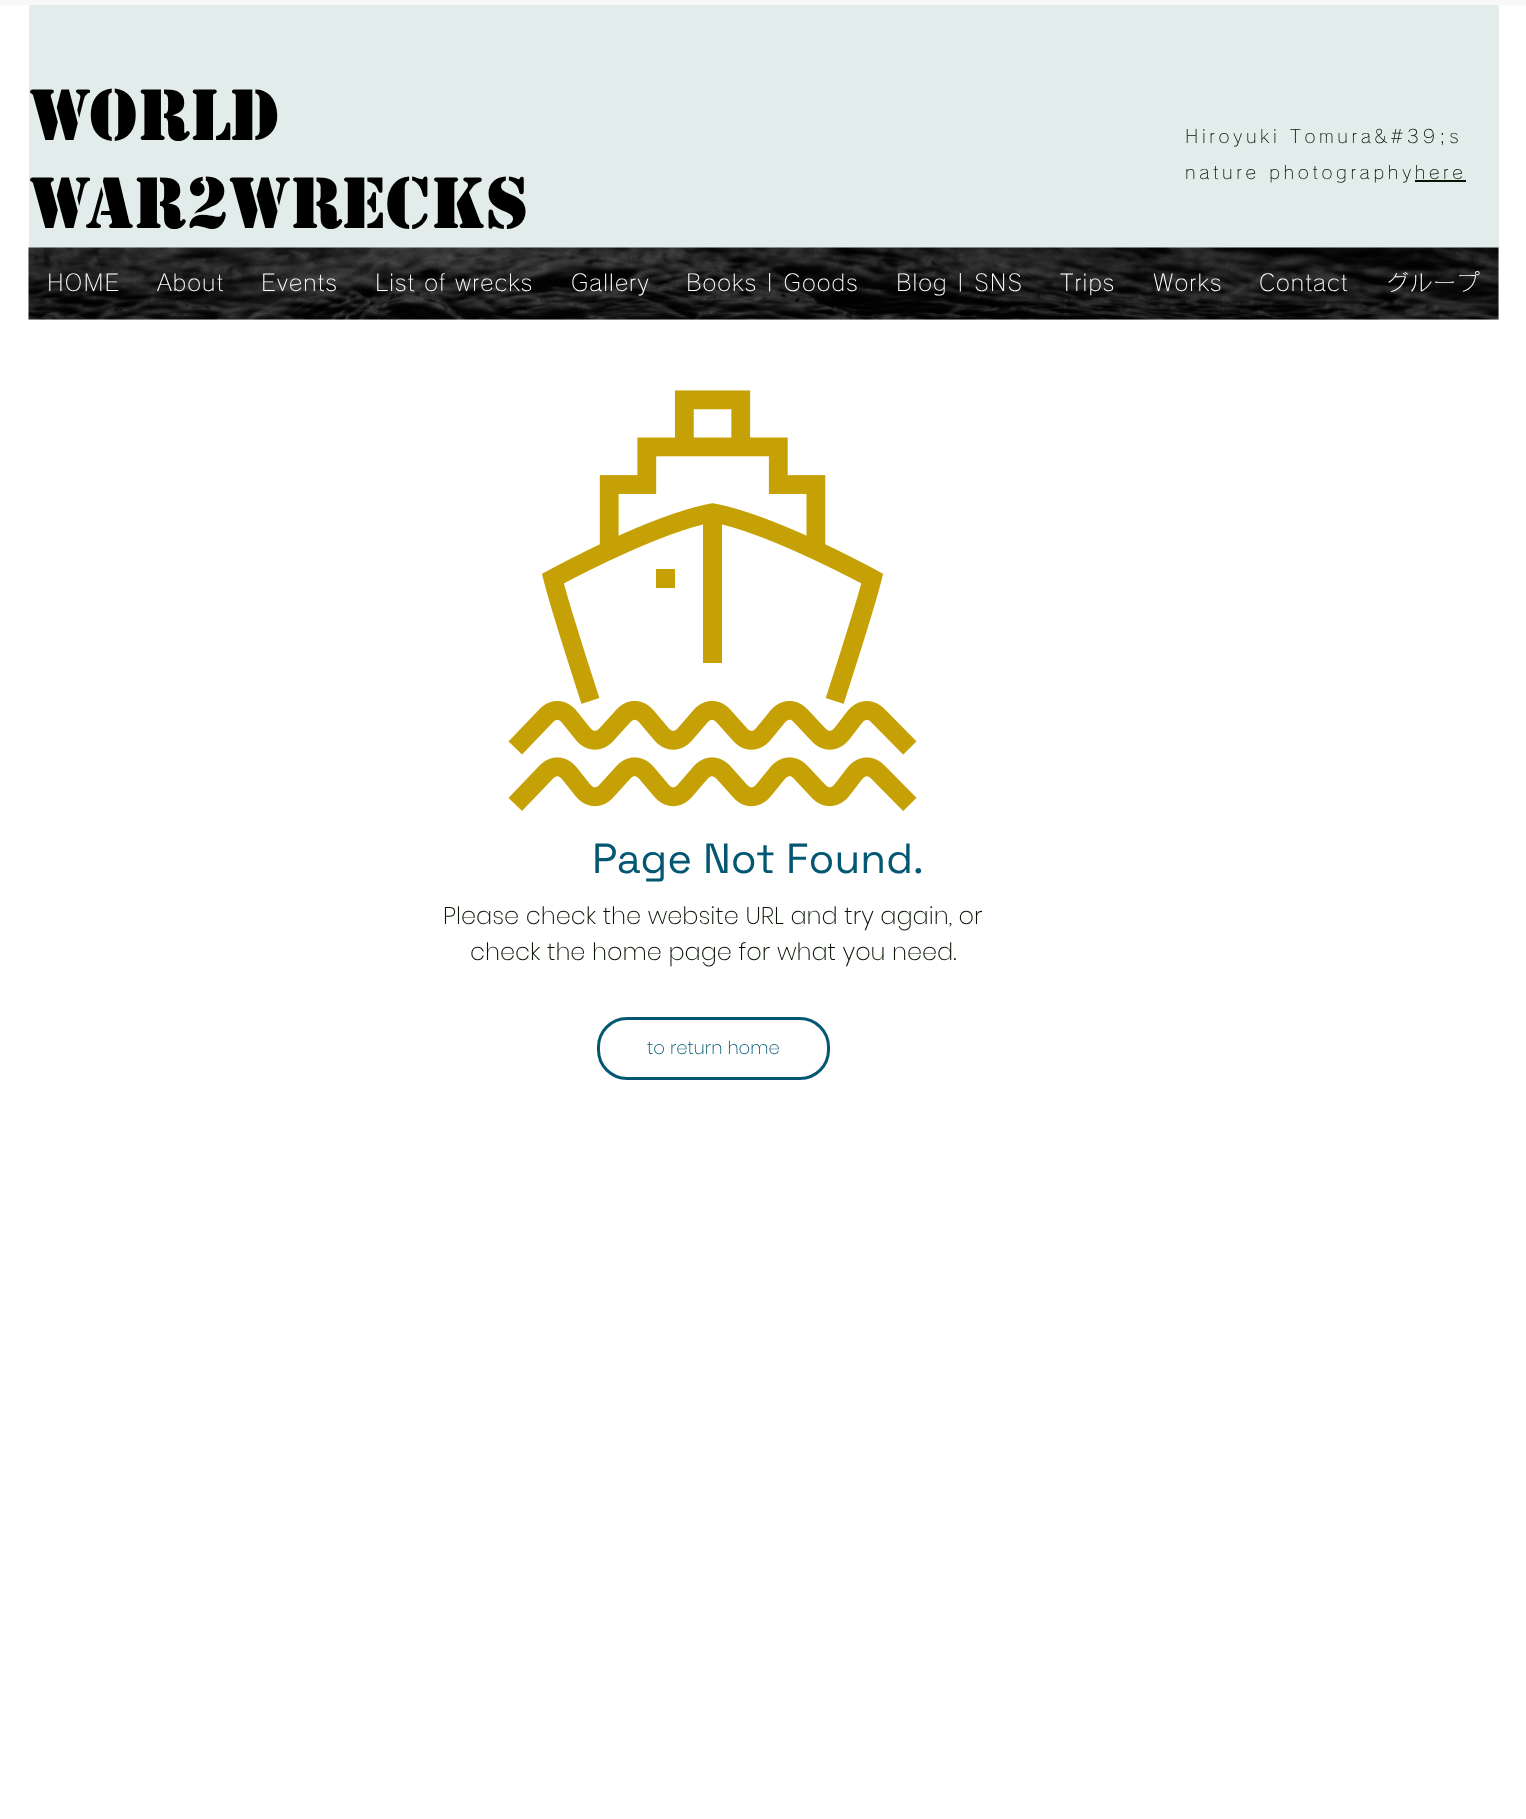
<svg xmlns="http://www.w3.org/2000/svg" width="1526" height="1819">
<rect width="100%" height="100%" fill="#fff"/>
<rect x="29" y="5" width="1470" height="315" fill="#e2eceb"/>
<rect width="1526" height="5" fill="#f6f9f5"/>
<text x="29" y="140" style="font-family:'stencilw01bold';font-size:67.5px;font-weight:bold;fill:#000">world</text>
<text x="29" y="228" style="font-family:'stencilw01bold';font-size:67.5px;font-weight:bold;fill:#000">war2wrecks</text>
<text x="1185" y="143" style="font-family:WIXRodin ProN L;font-size:18px;font-weight:300;letter-spacing:3.6px;fill:#091405">Hiroyuki Tomura&amp;#39;s</text>
<text x="1185" y="179" style="font-family:WIXRodin ProN L;font-size:18px;font-weight:300;letter-spacing:3.6px;fill:#091405">nature photographyhere</text>
<rect x="1415" y="180" width="51" height="2" fill="#091405"/>
<image x="28" y="247" width="1471" height="73" href="media/1.png"/>
<text x="47" y="291" style="font-family:WIXRodin ProN L;font-size:22.5px;font-weight:300;letter-spacing:1.1px;fill:#fff">HOME</text>
<text x="157" y="291" style="font-family:WIXRodin ProN L;font-size:22.5px;font-weight:300;letter-spacing:1.1px;fill:#fff">About</text>
<text x="261" y="291" style="font-family:WIXRodin ProN L;font-size:22.5px;font-weight:300;letter-spacing:1.1px;fill:#fff">Events</text>
<text x="375" y="291" style="font-family:WIXRodin ProN L;font-size:22.5px;font-weight:300;letter-spacing:1.1px;fill:#fff">List of wrecks</text>
<text x="571" y="291" style="font-family:WIXRodin ProN L;font-size:22.5px;font-weight:300;letter-spacing:1.1px;fill:#fff">Gallery</text>
<text x="686" y="291" style="font-family:WIXRodin ProN L;font-size:22.5px;font-weight:300;letter-spacing:1.1px;fill:#fff">Books | Goods</text>
<text x="896" y="291" style="font-family:WIXRodin ProN L;font-size:22.5px;font-weight:300;letter-spacing:1.1px;fill:#fff">Blog | SNS</text>
<text x="1060" y="291" style="font-family:WIXRodin ProN L;font-size:22.5px;font-weight:300;letter-spacing:1.1px;fill:#fff">Trips</text>
<text x="1153" y="291" style="font-family:WIXRodin ProN L;font-size:22.5px;font-weight:300;letter-spacing:1.1px;fill:#fff">Works</text>
<text x="1259" y="291" style="font-family:WIXRodin ProN L;font-size:22.5px;font-weight:300;letter-spacing:1.1px;fill:#fff">Contact</text>
<text x="1386" y="291" style="font-family:WIXRodin ProN L;font-size:22.5px;font-weight:300;letter-spacing:1.1px;fill:#fff">グループ</text>
<image x="508" y="390" width="409" height="421" href="media/2.png"/>
<text x="592" y="873" style="font-family:Space Grotesk;font-size:42px;fill:#035772">Page Not Found.</text>
<text x="443" y="924" style="font-family:Poppins;font-size:24px;font-weight:200;fill:#091405">Please check the website URL and try again, or</text>
<text x="470" y="960" style="font-family:Poppins;font-size:24px;font-weight:200;fill:#091405">check the home page for what you need.</text>
<rect x="598.5" y="1018.5" width="230" height="60" rx="28.5" fill="none" stroke="#035772" stroke-width="3"/>
<text x="647" y="1054" style="font-family:Poppins;font-size:18px;font-weight:200;fill:#035772">to return home</text>
</svg>
